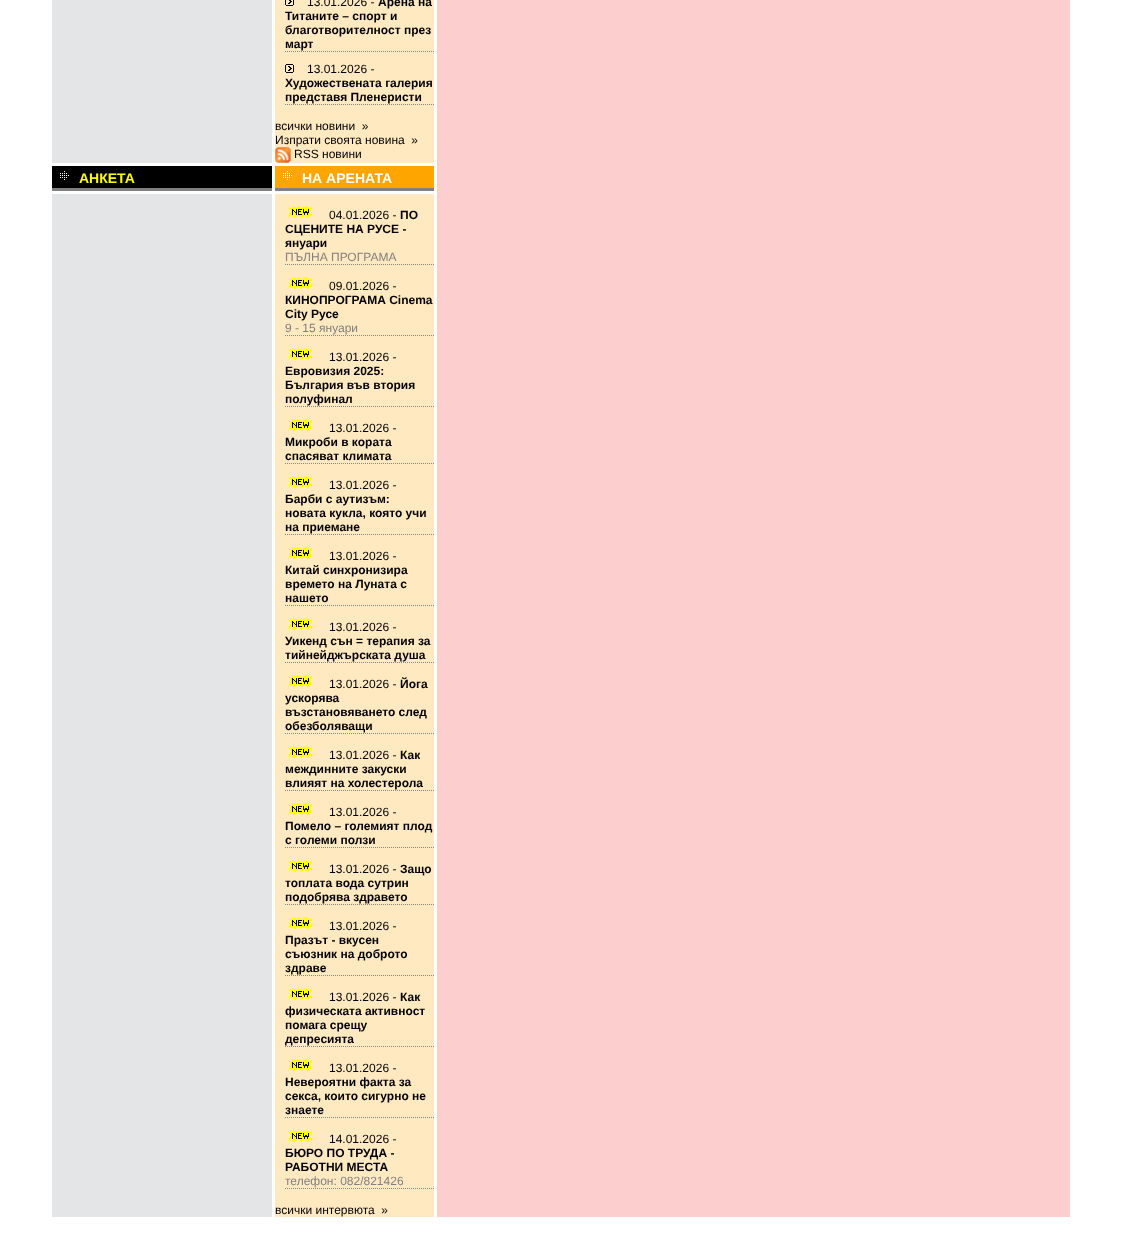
<svg xmlns="http://www.w3.org/2000/svg" width="1121" height="1242">
<rect width="100%" height="100%" fill="#fff"/>
<rect x="52" width="220" height="163" fill="#e4e5e7"/>
<rect x="275" width="159" height="163" fill="#ffe9c1"/>
<path d="M285 51.5h149" fill="none" stroke="#86877f" stroke-dasharray="1 1"/>
<image x="285" y="0" width="9" height="6" href="media/1.png"/>
<text x="307" y="6" style="font-family:Liberation Sans;font-size:12px;fill:#000">13.01.2026 -</text>
<text x="378" y="6" style="font-family:Liberation Sans;font-size:12px;font-weight:bold;fill:#000">Арена на</text>
<text x="285" y="20" style="font-family:Liberation Sans;font-size:12px;font-weight:bold;fill:#000">Титаните – спорт и</text>
<text x="285" y="34" style="font-family:Liberation Sans;font-size:12px;font-weight:bold;fill:#000">благотворителност през</text>
<text x="285" y="48" style="font-family:Liberation Sans;font-size:12px;font-weight:bold;fill:#000">март</text>
<path d="M285 104.5h149" fill="none" stroke="#86877f" stroke-dasharray="1 1"/>
<image x="285" y="64" width="9" height="9" href="media/2.png"/>
<text x="307" y="73" style="font-family:Liberation Sans;font-size:12px;fill:#000">13.01.2026 -</text>
<text x="285" y="87" style="font-family:Liberation Sans;font-size:12px;font-weight:bold;fill:#000">Художествената галерия</text>
<text x="285" y="101" style="font-family:Liberation Sans;font-size:12px;font-weight:bold;fill:#000">представя Пленеристи</text>
<text x="275" y="130" style="font-family:Liberation Sans;font-size:12px;fill:#000" xml:space="preserve">всички новини  »</text>
<text x="275" y="144" style="font-family:Liberation Sans;font-size:12px;fill:#000" xml:space="preserve">Изпрати своята новина  »</text>
<image x="275" y="147" width="16" height="16" href="media/3.png"/>
<text x="294" y="158" style="font-family:Liberation Sans;font-size:12px;fill:#000">RSS новини</text>
<rect x="437" width="633" height="1217" fill="#fdcece"/>
<rect x="52" y="166" width="220" height="22" fill="#000"/>
<rect x="52" y="188" width="220" height="3" fill="#808080"/>
<image x="60" y="171" width="9" height="9" href="media/4.png"/>
<text x="79" y="183" style="font-family:Liberation Sans;font-size:14px;font-weight:bold;fill:#ff0">АНКЕТА</text>
<rect x="275" y="166" width="159" height="22" fill="#ffa500"/>
<rect x="275" y="188" width="159" height="3" fill="#808080"/>
<image x="283" y="171" width="9" height="9" href="media/5.png"/>
<text x="302" y="183" style="font-family:Liberation Sans;font-size:14px;font-weight:bold;fill:#fff">НА АРЕНАТА</text>
<rect x="52" y="194" width="220" height="1023" fill="#e4e5e7"/>
<rect x="275" y="194" width="159" height="1023" fill="#ffe9c1"/>
<path d="M285 264.5h149" fill="none" stroke="#86877f" stroke-dasharray="1 1"/>
<image x="289" y="206" width="23" height="12" href="media/6.png"/>
<text x="329" y="219" style="font-family:Liberation Sans;font-size:12px;fill:#000">04.01.2026 -</text>
<text x="400" y="219" style="font-family:Liberation Sans;font-size:12px;font-weight:bold;fill:#000">ПО</text>
<text x="285" y="233" style="font-family:Liberation Sans;font-size:12px;font-weight:bold;fill:#000">СЦЕНИТЕ НА РУСЕ -</text>
<text x="285" y="247" style="font-family:Liberation Sans;font-size:12px;font-weight:bold;fill:#000">януари</text>
<text x="285" y="261" style="font-family:Liberation Sans;font-size:12px;fill:#808080">ПЪЛНА ПРОГРАМА</text>
<path d="M285 335.5h149" fill="none" stroke="#86877f" stroke-dasharray="1 1"/>
<image x="289" y="277" width="23" height="12" href="media/6.png"/>
<text x="329" y="290" style="font-family:Liberation Sans;font-size:12px;fill:#000">09.01.2026 -</text>
<text x="285" y="304" style="font-family:Liberation Sans;font-size:12px;font-weight:bold;fill:#000">КИНОПРОГРАМА Cinema</text>
<text x="285" y="318" style="font-family:Liberation Sans;font-size:12px;font-weight:bold;fill:#000">City Русе</text>
<text x="285" y="332" style="font-family:Liberation Sans;font-size:12px;fill:#808080">9 - 15 януари</text>
<path d="M285 406.5h149" fill="none" stroke="#86877f" stroke-dasharray="1 1"/>
<image x="289" y="348" width="23" height="12" href="media/6.png"/>
<text x="329" y="361" style="font-family:Liberation Sans;font-size:12px;fill:#000">13.01.2026 -</text>
<text x="285" y="375" style="font-family:Liberation Sans;font-size:12px;font-weight:bold;fill:#000">Евровизия 2025:</text>
<text x="285" y="389" style="font-family:Liberation Sans;font-size:12px;font-weight:bold;fill:#000">България във втория</text>
<text x="285" y="403" style="font-family:Liberation Sans;font-size:12px;font-weight:bold;fill:#000">полуфинал</text>
<path d="M285 463.5h149" fill="none" stroke="#86877f" stroke-dasharray="1 1"/>
<image x="289" y="419" width="23" height="12" href="media/6.png"/>
<text x="329" y="432" style="font-family:Liberation Sans;font-size:12px;fill:#000">13.01.2026 -</text>
<text x="285" y="446" style="font-family:Liberation Sans;font-size:12px;font-weight:bold;fill:#000">Микроби в кората</text>
<text x="285" y="460" style="font-family:Liberation Sans;font-size:12px;font-weight:bold;fill:#000">спасяват климата</text>
<path d="M285 534.5h149" fill="none" stroke="#86877f" stroke-dasharray="1 1"/>
<image x="289" y="476" width="23" height="12" href="media/6.png"/>
<text x="329" y="489" style="font-family:Liberation Sans;font-size:12px;fill:#000">13.01.2026 -</text>
<text x="285" y="503" style="font-family:Liberation Sans;font-size:12px;font-weight:bold;fill:#000">Барби с аутизъм:</text>
<text x="285" y="517" style="font-family:Liberation Sans;font-size:12px;font-weight:bold;fill:#000">новата кукла, която учи</text>
<text x="285" y="531" style="font-family:Liberation Sans;font-size:12px;font-weight:bold;fill:#000">на приемане</text>
<path d="M285 605.5h149" fill="none" stroke="#86877f" stroke-dasharray="1 1"/>
<image x="289" y="547" width="23" height="12" href="media/6.png"/>
<text x="329" y="560" style="font-family:Liberation Sans;font-size:12px;fill:#000">13.01.2026 -</text>
<text x="285" y="574" style="font-family:Liberation Sans;font-size:12px;font-weight:bold;fill:#000">Китай синхронизира</text>
<text x="285" y="588" style="font-family:Liberation Sans;font-size:12px;font-weight:bold;fill:#000">времето на Луната с</text>
<text x="285" y="602" style="font-family:Liberation Sans;font-size:12px;font-weight:bold;fill:#000">нашето</text>
<path d="M285 662.5h149" fill="none" stroke="#86877f" stroke-dasharray="1 1"/>
<image x="289" y="618" width="23" height="12" href="media/6.png"/>
<text x="329" y="631" style="font-family:Liberation Sans;font-size:12px;fill:#000">13.01.2026 -</text>
<text x="285" y="645" style="font-family:Liberation Sans;font-size:12px;font-weight:bold;fill:#000">Уикенд сън = терапия за</text>
<text x="285" y="659" style="font-family:Liberation Sans;font-size:12px;font-weight:bold;fill:#000">тийнейджърската душа</text>
<path d="M285 733.5h149" fill="none" stroke="#86877f" stroke-dasharray="1 1"/>
<image x="289" y="675" width="23" height="12" href="media/6.png"/>
<text x="329" y="688" style="font-family:Liberation Sans;font-size:12px;fill:#000">13.01.2026 -</text>
<text x="400" y="688" style="font-family:Liberation Sans;font-size:12px;font-weight:bold;fill:#000">Йога</text>
<text x="285" y="702" style="font-family:Liberation Sans;font-size:12px;font-weight:bold;fill:#000">ускорява</text>
<text x="285" y="716" style="font-family:Liberation Sans;font-size:12px;font-weight:bold;fill:#000">възстановяването след</text>
<text x="285" y="730" style="font-family:Liberation Sans;font-size:12px;font-weight:bold;fill:#000">обезболяващи</text>
<path d="M285 790.5h149" fill="none" stroke="#86877f" stroke-dasharray="1 1"/>
<image x="289" y="746" width="23" height="12" href="media/6.png"/>
<text x="329" y="759" style="font-family:Liberation Sans;font-size:12px;fill:#000">13.01.2026 -</text>
<text x="400" y="759" style="font-family:Liberation Sans;font-size:12px;font-weight:bold;fill:#000">Как</text>
<text x="285" y="773" style="font-family:Liberation Sans;font-size:12px;font-weight:bold;fill:#000">междинните закуски</text>
<text x="285" y="787" style="font-family:Liberation Sans;font-size:12px;font-weight:bold;fill:#000">влияят на холестерола</text>
<path d="M285 847.5h149" fill="none" stroke="#86877f" stroke-dasharray="1 1"/>
<image x="289" y="803" width="23" height="12" href="media/6.png"/>
<text x="329" y="816" style="font-family:Liberation Sans;font-size:12px;fill:#000">13.01.2026 -</text>
<text x="285" y="830" style="font-family:Liberation Sans;font-size:12px;font-weight:bold;fill:#000">Помело – големият плод</text>
<text x="285" y="844" style="font-family:Liberation Sans;font-size:12px;font-weight:bold;fill:#000">с големи ползи</text>
<path d="M285 904.5h149" fill="none" stroke="#86877f" stroke-dasharray="1 1"/>
<image x="289" y="860" width="23" height="12" href="media/6.png"/>
<text x="329" y="873" style="font-family:Liberation Sans;font-size:12px;fill:#000">13.01.2026 -</text>
<text x="400" y="873" style="font-family:Liberation Sans;font-size:12px;font-weight:bold;fill:#000">Защо</text>
<text x="285" y="887" style="font-family:Liberation Sans;font-size:12px;font-weight:bold;fill:#000">топлата вода сутрин</text>
<text x="285" y="901" style="font-family:Liberation Sans;font-size:12px;font-weight:bold;fill:#000">подобрява здравето</text>
<path d="M285 975.5h149" fill="none" stroke="#86877f" stroke-dasharray="1 1"/>
<image x="289" y="917" width="23" height="12" href="media/6.png"/>
<text x="329" y="930" style="font-family:Liberation Sans;font-size:12px;fill:#000">13.01.2026 -</text>
<text x="285" y="944" style="font-family:Liberation Sans;font-size:12px;font-weight:bold;fill:#000">Празът - вкусен</text>
<text x="285" y="958" style="font-family:Liberation Sans;font-size:12px;font-weight:bold;fill:#000">съюзник на доброто</text>
<text x="285" y="972" style="font-family:Liberation Sans;font-size:12px;font-weight:bold;fill:#000">здраве</text>
<path d="M285 1046.5h149" fill="none" stroke="#86877f" stroke-dasharray="1 1"/>
<image x="289" y="988" width="23" height="12" href="media/6.png"/>
<text x="329" y="1001" style="font-family:Liberation Sans;font-size:12px;fill:#000">13.01.2026 -</text>
<text x="400" y="1001" style="font-family:Liberation Sans;font-size:12px;font-weight:bold;fill:#000">Как</text>
<text x="285" y="1015" style="font-family:Liberation Sans;font-size:12px;font-weight:bold;fill:#000">физическата активност</text>
<text x="285" y="1029" style="font-family:Liberation Sans;font-size:12px;font-weight:bold;fill:#000">помага срещу</text>
<text x="285" y="1043" style="font-family:Liberation Sans;font-size:12px;font-weight:bold;fill:#000">депресията</text>
<path d="M285 1117.5h149" fill="none" stroke="#86877f" stroke-dasharray="1 1"/>
<image x="289" y="1059" width="23" height="12" href="media/6.png"/>
<text x="329" y="1072" style="font-family:Liberation Sans;font-size:12px;fill:#000">13.01.2026 -</text>
<text x="285" y="1086" style="font-family:Liberation Sans;font-size:12px;font-weight:bold;fill:#000">Невероятни факта за</text>
<text x="285" y="1100" style="font-family:Liberation Sans;font-size:12px;font-weight:bold;fill:#000">секса, които сигурно не</text>
<text x="285" y="1114" style="font-family:Liberation Sans;font-size:12px;font-weight:bold;fill:#000">знаете</text>
<path d="M285 1188.5h149" fill="none" stroke="#86877f" stroke-dasharray="1 1"/>
<image x="289" y="1130" width="23" height="12" href="media/6.png"/>
<text x="329" y="1143" style="font-family:Liberation Sans;font-size:12px;fill:#000">14.01.2026 -</text>
<text x="285" y="1157" style="font-family:Liberation Sans;font-size:12px;font-weight:bold;fill:#000">БЮРО ПО ТРУДА -</text>
<text x="285" y="1171" style="font-family:Liberation Sans;font-size:12px;font-weight:bold;fill:#000">РАБОТНИ МЕСТА</text>
<text x="285" y="1185" style="font-family:Liberation Sans;font-size:12px;fill:#808080">телефон: 082/821426</text>
<text x="275" y="1214" style="font-family:Liberation Sans;font-size:12px;fill:#000" xml:space="preserve">всички интервюта  »</text>
</svg>
